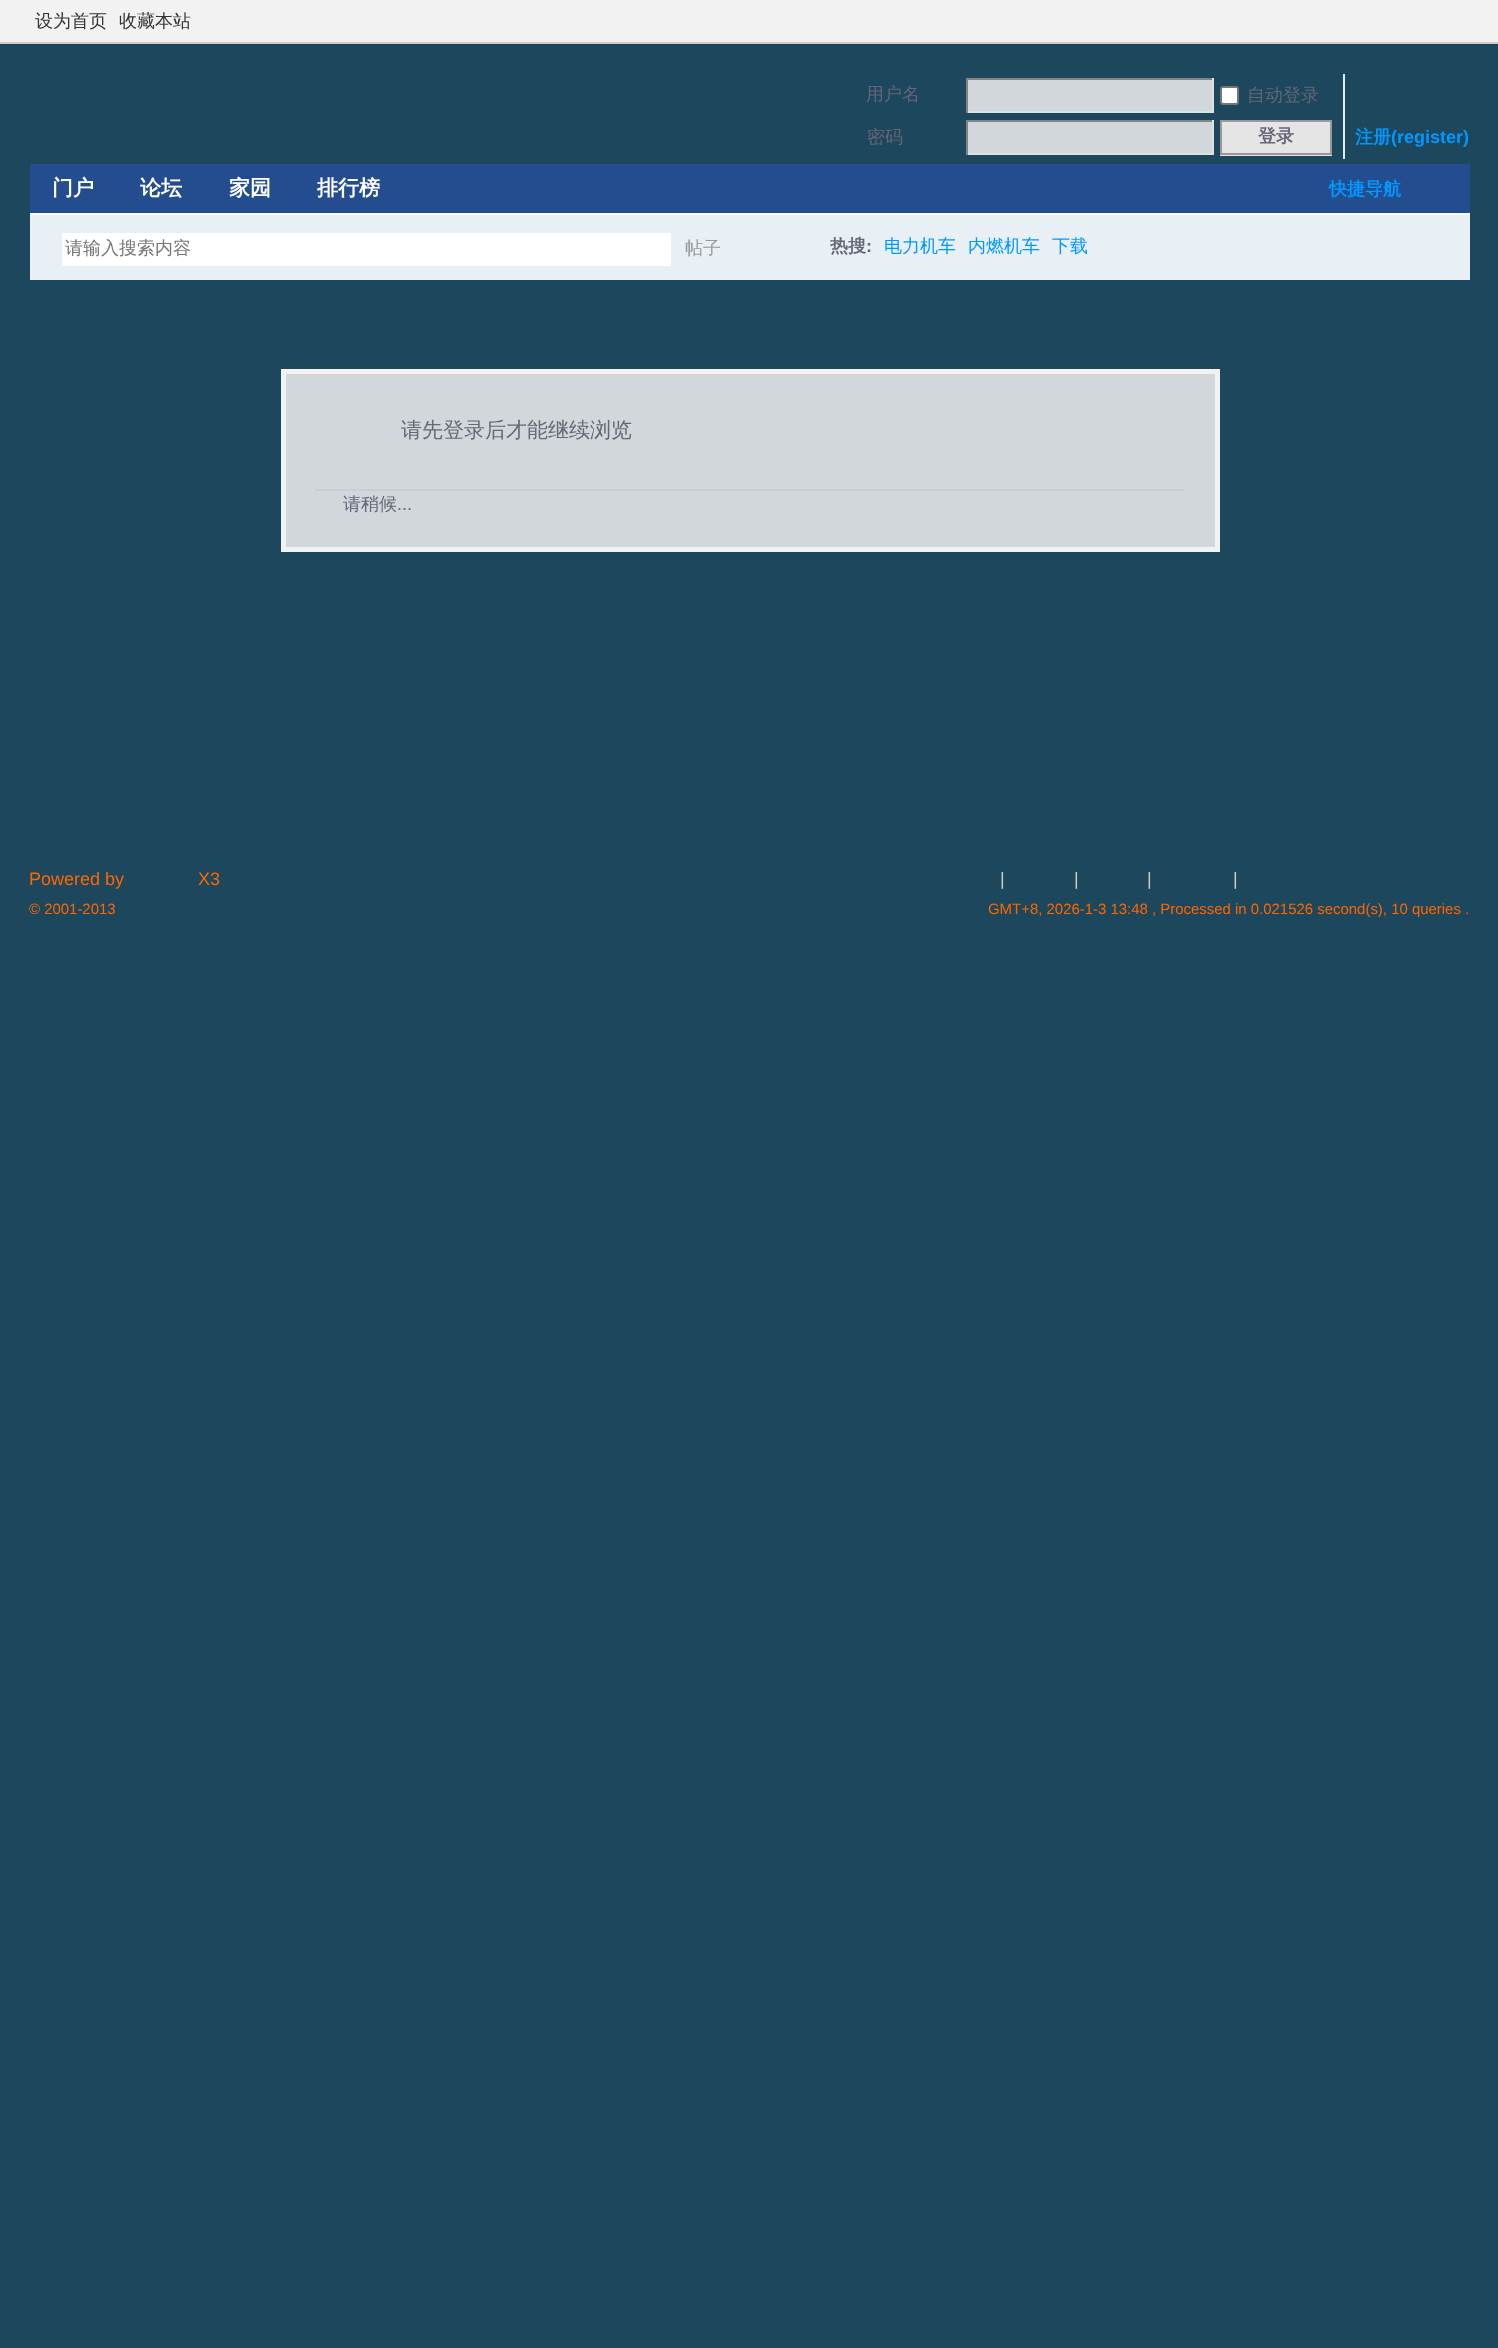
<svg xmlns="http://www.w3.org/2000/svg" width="1498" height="2348">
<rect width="100%" height="100%" fill="#1c475c"/>
<rect width="1498" height="42" fill="#f2f2f2"/>
<rect y="42" width="1498" height="2" fill="#cdcdcd"/>
<text x="35" y="27" style="font-family:WenQuanYi Zen Hei;font-size:18px;font-weight:500;fill:#333">设为首页</text>
<text x="119" y="27" style="font-family:WenQuanYi Zen Hei;font-size:18px;font-weight:500;fill:#333">收藏本站</text>
<text x="866" y="100" style="font-family:WenQuanYi Zen Hei;font-size:18px;font-weight:500;fill:#667">用户名</text>
<rect x="968" y="80" width="244" height="31" fill="#d1d7da"/>
<rect x="966" y="78" width="248" height="2" fill="#848484"/>
<rect x="1212" y="78" width="2" height="35" fill="#e0e0e0"/>
<rect x="966" y="111" width="248" height="2" fill="#e0e0e0"/>
<rect x="966" y="78" width="2" height="35" fill="#848484"/>
<rect x="1221" y="87" width="17" height="17" rx="2" fill="#fff" stroke="#767676" stroke-width="2"/>
<text x="1247" y="101" style="font-family:WenQuanYi Zen Hei;font-size:18px;font-weight:500;fill:#667">自动登录</text>
<text x="867" y="143" style="font-family:WenQuanYi Zen Hei;font-size:18px;font-weight:500;fill:#667">密码</text>
<rect x="968" y="122" width="244" height="31" fill="#d1d7da"/>
<rect x="966" y="120" width="248" height="2" fill="#848484"/>
<rect x="1212" y="120" width="2" height="35" fill="#e0e0e0"/>
<rect x="966" y="153" width="248" height="2" fill="#e0e0e0"/>
<rect x="966" y="120" width="2" height="35" fill="#848484"/>
<rect x="1343" y="74" width="2" height="85" fill="#e5edf2"/>
<rect x="1220" y="155" width="112" height="1" fill="#e5e5e5"/>
<rect x="1221" y="121" width="110" height="33" fill="#e5e5e5" stroke="#999" stroke-width="2"/>
<text x="1258" y="142" style="font-family:WenQuanYi Zen Hei;font-size:18px;font-weight:bold;fill:#667">登录</text>
<text x="1355" y="143" style="font-family:WenQuanYi Zen Hei;font-size:18px;font-weight:bold;fill:#09f">注册</text>
<text x="1391" y="143" style="font-family:Liberation Sans;font-size:18px;font-weight:bold;fill:#09f">(register)</text>
<rect x="30" y="164" width="1440" height="49" fill="#244d8f"/>
<text x="52" y="195" style="font-family:WenQuanYi Zen Hei;font-size:21px;font-weight:bold;fill:#fff">门户</text>
<text x="140" y="195" style="font-family:WenQuanYi Zen Hei;font-size:21px;font-weight:bold;fill:#fff">论坛</text>
<text x="229" y="195" style="font-family:WenQuanYi Zen Hei;font-size:21px;font-weight:bold;fill:#fff">家园</text>
<text x="317" y="195" style="font-family:WenQuanYi Zen Hei;font-size:21px;font-weight:bold;fill:#fff">排行榜</text>
<text x="1329" y="195" style="font-family:WenQuanYi Zen Hei;font-size:18px;font-weight:bold;fill:#09f">快捷导航</text>
<rect x="30" y="215" width="1440" height="63" fill="#e8eff5"/>
<rect x="30" y="213" width="1440" height="2" fill="#fff"/>
<rect x="30" y="278" width="1440" height="2" fill="#e9eff5"/>
<rect x="62" y="233" width="609" height="33" fill="#fff"/>
<text x="65" y="254" style="font-family:WenQuanYi Zen Hei;font-size:18px;font-weight:500;fill:#757575">请输入搜索内容</text>
<text x="685" y="254" style="font-family:WenQuanYi Zen Hei;font-size:18px;font-weight:500;fill:#999">帖子</text>
<text x="830" y="252" style="font-family:WenQuanYi Zen Hei;font-size:18px;font-weight:bold;fill:#667">热搜</text>
<text x="866" y="252" style="font-family:Liberation Sans;font-size:18px;font-weight:bold;fill:#667">:</text>
<text x="884" y="252" style="font-family:WenQuanYi Zen Hei;font-size:18px;font-weight:500;fill:#09f">电力机车</text>
<text x="968" y="252" style="font-family:WenQuanYi Zen Hei;font-size:18px;font-weight:500;fill:#09f">内燃机车</text>
<text x="1052" y="252" style="font-family:WenQuanYi Zen Hei;font-size:18px;font-weight:500;fill:#09f">下载</text>
<rect x="283.5" y="371.5" width="934" height="178" fill="#d1d7da" stroke="#f2f2f2" stroke-width="5"/>
<text x="401" y="437" style="font-family:WenQuanYi Zen Hei;font-size:21px;font-weight:500;fill:#667">请先登录后才能继续浏览</text>
<rect x="315" y="489" width="870" height="2" fill="#cdcdcd"/>
<text x="343" y="510" style="font-family:WenQuanYi Zen Hei;font-size:18px;font-weight:500;fill:#667">请稍候</text>
<text x="397" y="510" style="font-family:Liberation Sans;font-size:18px;fill:#667">...</text>
<text x="29" y="885" style="font-family:Liberation Sans;font-size:18px;fill:#f60">Powered by</text>
<text x="198" y="885" style="font-family:Liberation Sans;font-size:18px;fill:#f60">X3</text>
<text x="29" y="914" style="font-family:Liberation Sans;font-size:14.95px;fill:#f60">© 2001-2013</text>
<text x="1000" y="885" style="font-family:Liberation Sans;font-size:18px;fill:#ccc">|</text>
<text x="1074" y="885" style="font-family:Liberation Sans;font-size:18px;fill:#ccc">|</text>
<text x="1147" y="885" style="font-family:Liberation Sans;font-size:18px;fill:#ccc">|</text>
<text x="1233" y="885" style="font-family:Liberation Sans;font-size:18px;fill:#ccc">|</text>
<text x="988" y="914" style="font-family:Liberation Sans;font-size:14.95px;fill:#f60">GMT+8, 2026-1-3 13:48 , Processed in 0.021526 second(s), 10 queries .</text>
</svg>
